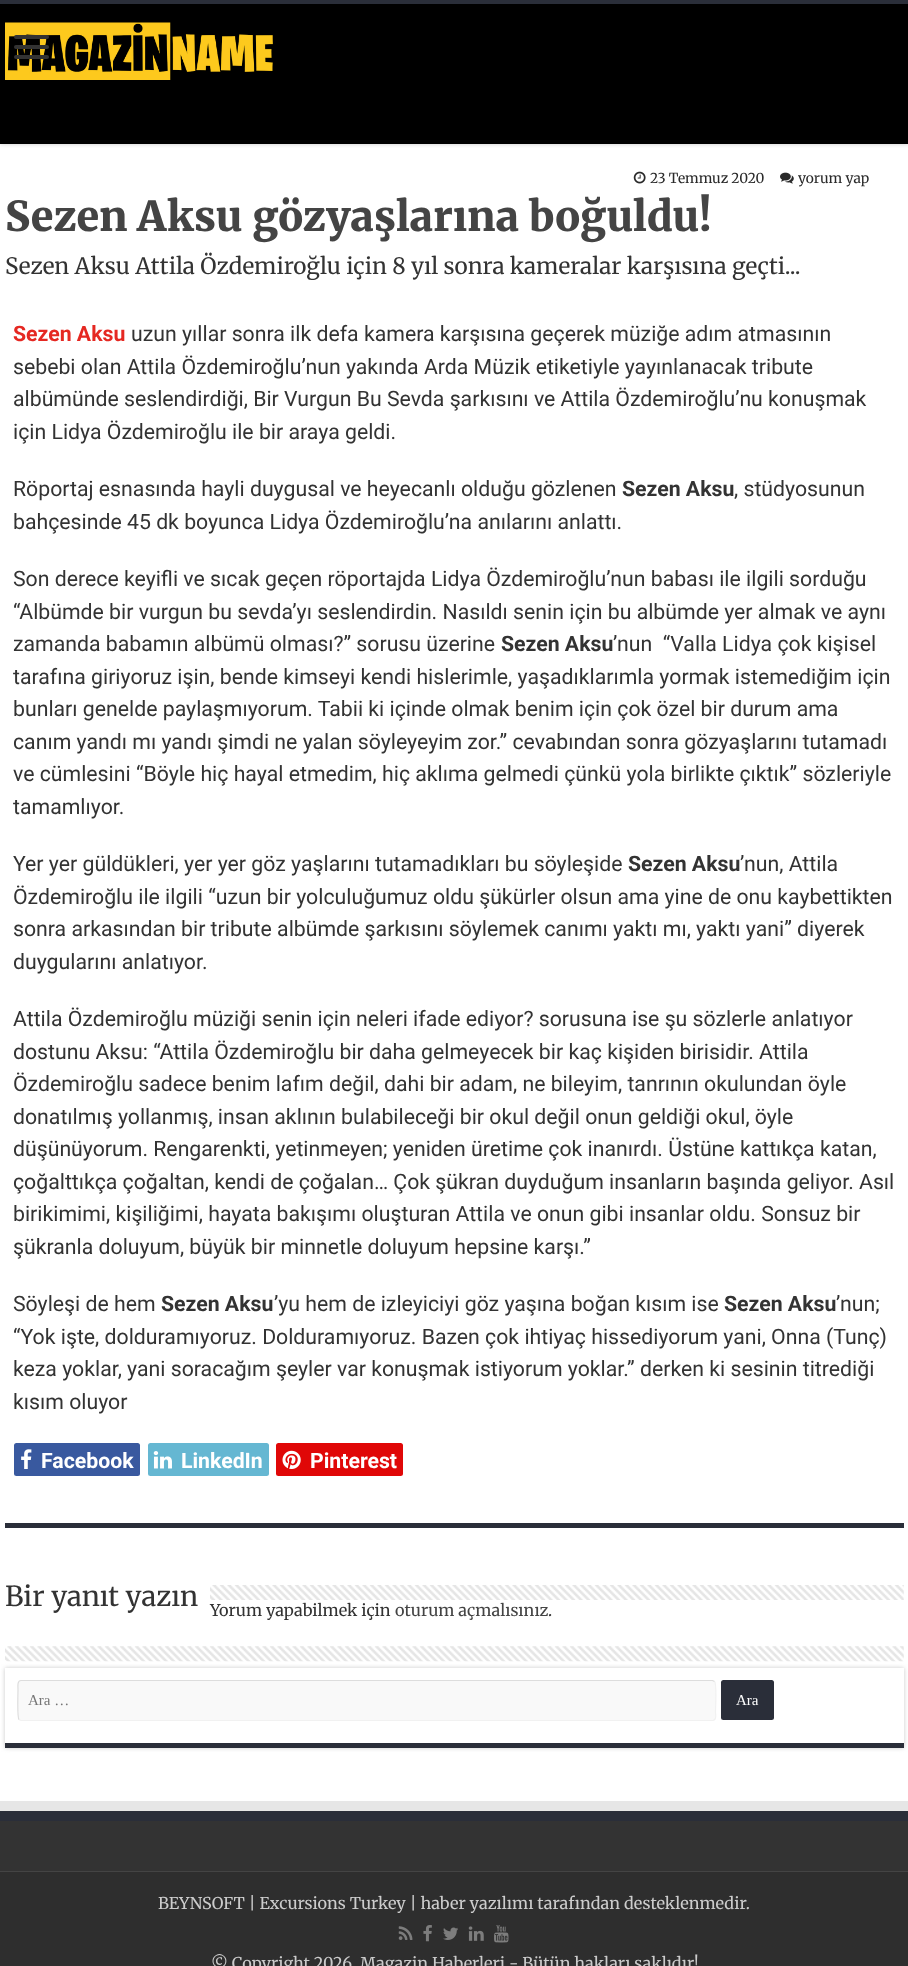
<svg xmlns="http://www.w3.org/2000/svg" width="908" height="1966">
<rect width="100%" height="100%" fill="#fff"/>
<rect width="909" height="144" fill="#cacaca" filter="blur(2px)"/>
<rect y="4" width="908" height="140" fill="#000"/>
<rect width="908" height="4" fill="#2a2e39"/>
<image x="5" y="22" width="268" height="58" href="media/1.png"/>
<rect x="14" y="35" width="35" height="4" rx="2" fill="#333"/>
<rect x="14" y="45" width="35" height="4" rx="2" fill="#333"/>
<rect x="14" y="55" width="35" height="4" rx="2" fill="#333"/>
<image x="633" y="171" width="13" height="13" href="media/2.png"/>
<text x="650" y="183" style="font-family:Merriweather;font-size:13.75px;fill:#2a2a2a">23 Temmuz 2020</text>
<image x="780" y="172" width="14" height="12" href="media/3.png"/>
<text x="798" y="183" style="font-family:Merriweather;font-size:13.75px;fill:#2a2a2a">yorum yap</text>
<text x="5" y="231" style="font-family:Merriweather;font-size:41.25px;font-weight:900;fill:#444">Sezen Aksu gözyaşlarına boğuldu!</text>
<text x="5" y="274" style="font-family:Merriweather;font-size:22.5px;fill:#333">Sezen Aksu Attila Özdemiroğlu için 8 yıl sonra kameralar karşısına geçti...</text>
<rect x="5" y="1523" width="899" height="5" fill="#2a2e39"/>
<text x="13" y="341" style="font-family:Roboto;font-size:21.25px;font-weight:bold;fill:#e52822">Sezen Aksu</text>
<text x="131" y="341" style="font-family:Roboto;font-size:21.25px;fill:#333">uzun yıllar sonra ilk defa kamera karşısına geçerek müziğe adım atmasının</text>
<text x="13" y="374" style="font-family:Roboto;font-size:21.25px;fill:#333">sebebi olan Attila Özdemiroğlu’nun yakında Arda Müzik etiketiyle yayınlanacak tribute</text>
<text x="13" y="406" style="font-family:Roboto;font-size:21.25px;fill:#333">albümünde seslendirdiği, Bir Vurgun Bu Sevda şarkısını ve Attila Özdemiroğlu’nu konuşmak</text>
<text x="13" y="439" style="font-family:Roboto;font-size:21.25px;fill:#333">için Lidya Özdemiroğlu ile bir araya geldi.</text>
<text x="13" y="496" style="font-family:Roboto;font-size:21.25px;fill:#333">Röportaj esnasında hayli duygusal ve heyecanlı olduğu gözlenen</text>
<text x="622" y="496" style="font-family:Roboto;font-size:21.25px;font-weight:bold;fill:#333">Sezen Aksu</text>
<text x="734" y="496" style="font-family:Roboto;font-size:21.25px;fill:#333">, stüdyosunun</text>
<text x="13" y="529" style="font-family:Roboto;font-size:21.25px;fill:#333">bahçesinde 45 dk boyunca Lidya Özdemiroğlu’na anılarını anlattı.</text>
<text x="13" y="586" style="font-family:Roboto;font-size:21.25px;fill:#333">Son derece keyifli ve sıcak geçen röportajda Lidya Özdemiroğlu’nun babası ile ilgili sorduğu</text>
<text x="13" y="619" style="font-family:Roboto;font-size:21.25px;fill:#333">“Albümde bir vurgun bu sevda’yı seslendirdin. Nasıldı senin için bu albümde yer almak ve aynı</text>
<text x="13" y="651" style="font-family:Roboto;font-size:21.25px;fill:#333">zamanda babamın albümü olması?” sorusu üzerine</text>
<text x="501" y="651" style="font-family:Roboto;font-size:21.25px;font-weight:bold;fill:#333">Sezen Aksu</text>
<text x="613" y="651" style="font-family:Roboto;font-size:21.25px;fill:#333" xml:space="preserve">’nun  “Valla Lidya çok kişisel</text>
<text x="13" y="684" style="font-family:Roboto;font-size:21.25px;fill:#333">tarafına giriyoruz işin, bende kimseyi kendi hislerimle, yaşadıklarımla yormak istemediğim için</text>
<text x="13" y="716" style="font-family:Roboto;font-size:21.25px;fill:#333">bunları genelde paylaşmıyorum. Tabii ki içinde olmak benim için çok özel bir durum ama</text>
<text x="13" y="749" style="font-family:Roboto;font-size:21.25px;fill:#333">canım yandı mı yandı şimdi ne yalan söyleyeyim zor.” cevabından sonra gözyaşlarını tutamadı</text>
<text x="13" y="781" style="font-family:Roboto;font-size:21.25px;fill:#333">ve cümlesini “Böyle hiç hayal etmedim, hiç aklıma gelmedi çünkü yola birlikte çıktık” sözleriyle</text>
<text x="13" y="814" style="font-family:Roboto;font-size:21.25px;fill:#333">tamamlıyor.</text>
<text x="13" y="871" style="font-family:Roboto;font-size:21.25px;fill:#333">Yer yer güldükleri, yer yer göz yaşlarını tutamadıkları bu söyleşide</text>
<text x="628" y="871" style="font-family:Roboto;font-size:21.25px;font-weight:bold;fill:#333">Sezen Aksu</text>
<text x="740" y="871" style="font-family:Roboto;font-size:21.25px;fill:#333">’nun, Attila</text>
<text x="13" y="904" style="font-family:Roboto;font-size:21.25px;fill:#333">Özdemiroğlu ile ilgili “uzun bir yolculuğumuz oldu şükürler olsun ama yine de onu kaybettikten</text>
<text x="13" y="936" style="font-family:Roboto;font-size:21.25px;fill:#333">sonra arkasından bir tribute albümde şarkısını söylemek canımı yaktı mı, yaktı yani” diyerek</text>
<text x="13" y="969" style="font-family:Roboto;font-size:21.25px;fill:#333">duygularını anlatıyor.</text>
<text x="13" y="1026" style="font-family:Roboto;font-size:21.25px;fill:#333">Attila Özdemiroğlu müziği senin için neleri ifade ediyor? sorusuna ise şu sözlerle anlatıyor</text>
<text x="13" y="1059" style="font-family:Roboto;font-size:21.25px;fill:#333">dostunu Aksu: “Attila Özdemiroğlu bir daha gelmeyecek bir kaç kişiden birisidir. Attila</text>
<text x="13" y="1091" style="font-family:Roboto;font-size:21.25px;fill:#333">Özdemiroğlu sadece benim lafım değil, dahi bir adam, ne bileyim, tanrının okulundan öyle</text>
<text x="13" y="1124" style="font-family:Roboto;font-size:21.25px;fill:#333">donatılmış yollanmış, insan aklının bulabileceği bir okul değil onun geldiği okul, öyle</text>
<text x="13" y="1156" style="font-family:Roboto;font-size:21.25px;fill:#333">düşünüyorum. Rengarenkti, yetinmeyen; yeniden üretime çok inanırdı. Üstüne kattıkça katan,</text>
<text x="13" y="1189" style="font-family:Roboto;font-size:21.25px;fill:#333">çoğalttıkça çoğaltan, kendi de çoğalan… Çok şükran duyduğum insanların başında geliyor. Asıl</text>
<text x="13" y="1221" style="font-family:Roboto;font-size:21.25px;fill:#333">birikimimi, kişiliğimi, hayata bakışımı oluşturan Attila ve onun gibi insanlar oldu. Sonsuz bir</text>
<text x="13" y="1254" style="font-family:Roboto;font-size:21.25px;fill:#333">şükranla doluyum, büyük bir minnetle doluyum hepsine karşı.”</text>
<text x="13" y="1311" style="font-family:Roboto;font-size:21.25px;fill:#333">Söyleşi de hem</text>
<text x="161" y="1311" style="font-family:Roboto;font-size:21.25px;font-weight:bold;fill:#333">Sezen Aksu</text>
<text x="274" y="1311" style="font-family:Roboto;font-size:21.25px;fill:#333">’yu hem de izleyiciyi göz yaşına boğan kısım ise</text>
<text x="724" y="1311" style="font-family:Roboto;font-size:21.25px;font-weight:bold;fill:#333">Sezen Aksu</text>
<text x="836" y="1311" style="font-family:Roboto;font-size:21.25px;fill:#333">’nun;</text>
<text x="13" y="1344" style="font-family:Roboto;font-size:21.25px;fill:#333">“Yok işte, dolduramıyoruz. Dolduramıyoruz. Bazen çok ihtiyaç hissediyorum yani, Onna (Tunç)</text>
<text x="13" y="1376" style="font-family:Roboto;font-size:21.25px;fill:#333">keza yoklar, yani soracağım şeyler var konuşmak istiyorum yoklar.” derken ki sesinin titrediği</text>
<text x="13" y="1409" style="font-family:Roboto;font-size:21.25px;fill:#333">kısım oluyor</text>
<rect x="14" y="1443" width="126" height="33" rx="2.5" fill="#39599f"/>
<image x="21" y="1449" width="11" height="20" href="media/4.png"/>
<text x="41" y="1468" style="font-family:Roboto;font-size:21.25px;font-weight:bold;fill:#fff">Facebook</text>
<rect x="148" y="1443" width="121" height="33" rx="2.5" fill="#65b7d2"/>
<image x="153" y="1451" width="19" height="18" href="media/5.png"/>
<text x="181" y="1468" style="font-family:Roboto;font-size:21.25px;font-weight:bold;fill:#fff">LinkedIn</text>
<rect x="276" y="1443" width="127" height="33" rx="2.5" fill="#e00707"/>
<image x="282" y="1450" width="19" height="19" href="media/6.png"/>
<text x="310" y="1468" style="font-family:Roboto;font-size:21.25px;font-weight:bold;fill:#fff">Pinterest</text>
<text x="5" y="1606" style="font-family:Merriweather;font-size:27.5px;fill:#333">Bir yanıt yazın</text>
<image x="210" y="1585" width="694" height="15" href="media/7.png"/>
<text x="210" y="1616" style="font-family:Merriweather;font-size:16.25px;fill:#333">Yorum yapabilmek için</text>
<text x="395" y="1616" style="font-family:Merriweather;font-size:16.25px;fill:#444">oturum açmalısınız</text>
<text x="548" y="1616" style="font-family:Merriweather;font-size:16.25px;fill:#333">.</text>
<rect x="5" y="1668" width="899" height="80" fill="#cacaca" filter="blur(2px)"/>
<image x="5" y="1646" width="899" height="16" href="media/8.png"/>
<rect x="5" y="1668" width="899" height="75" fill="#fff"/>
<rect x="5" y="1743" width="899" height="5" fill="#2a2e39"/>
<rect x="18" y="1680" width="698" height="41" rx="4" fill="#f9f9f9"/>
<path d="M714.5 1681.5c2.5 2 1 26 1 30.5c0 2 1.5 8.5-3 8.5h-691.5l-2-1" fill="none" stroke="#f1f1f1" stroke-width="1.2"/>
<path d="M19 1719.5c-2-2-1-26-1-30c0-2.5-1-9 3-9h691.5l2 1" fill="none" stroke="#ddd" stroke-width="1.2"/>
<text x="28" y="1705" style="font-family:Liberation Serif;font-size:15px;fill:#757575">Ara …</text>
<rect x="721" y="1680" width="53" height="40" rx="2.5" fill="#2a2e39"/>
<text x="736" y="1705" style="font-family:Liberation Serif;font-size:15px;fill:#fff">Ara</text>
<path d="M0 1801v10h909v50v-60z" fill="#e6e6e6"/>
<rect y="1821" width="908" height="50" fill="#333"/>
<rect y="1811" width="908" height="10" fill="#2a2e39"/>
<rect y="1872" width="908" height="94" fill="#2e2e2e"/>
<rect y="1871" width="908" height="1" fill="#444"/>
<text x="158" y="1909" style="font-family:Merriweather;font-size:16.25px;fill:#ccc">BEYNSOFT | Excursions Turkey | haber yazılımı tarafından desteklenmedir.</text>
<image x="398" y="1926" width="15" height="14" href="media/9.png"/>
<image x="423" y="1925" width="9" height="17" href="media/10.png"/>
<image x="443" y="1927" width="15" height="13" href="media/11.png"/>
<image x="468" y="1926" width="16" height="15" href="media/12.png"/>
<image x="494" y="1925" width="15" height="18" href="media/13.png"/>
<text x="211" y="1969" style="font-family:Merriweather;font-size:16.25px;fill:#ccc">© Copyright 2026, Magazin Haberleri - Bütün hakları saklıdır!</text>
</svg>
